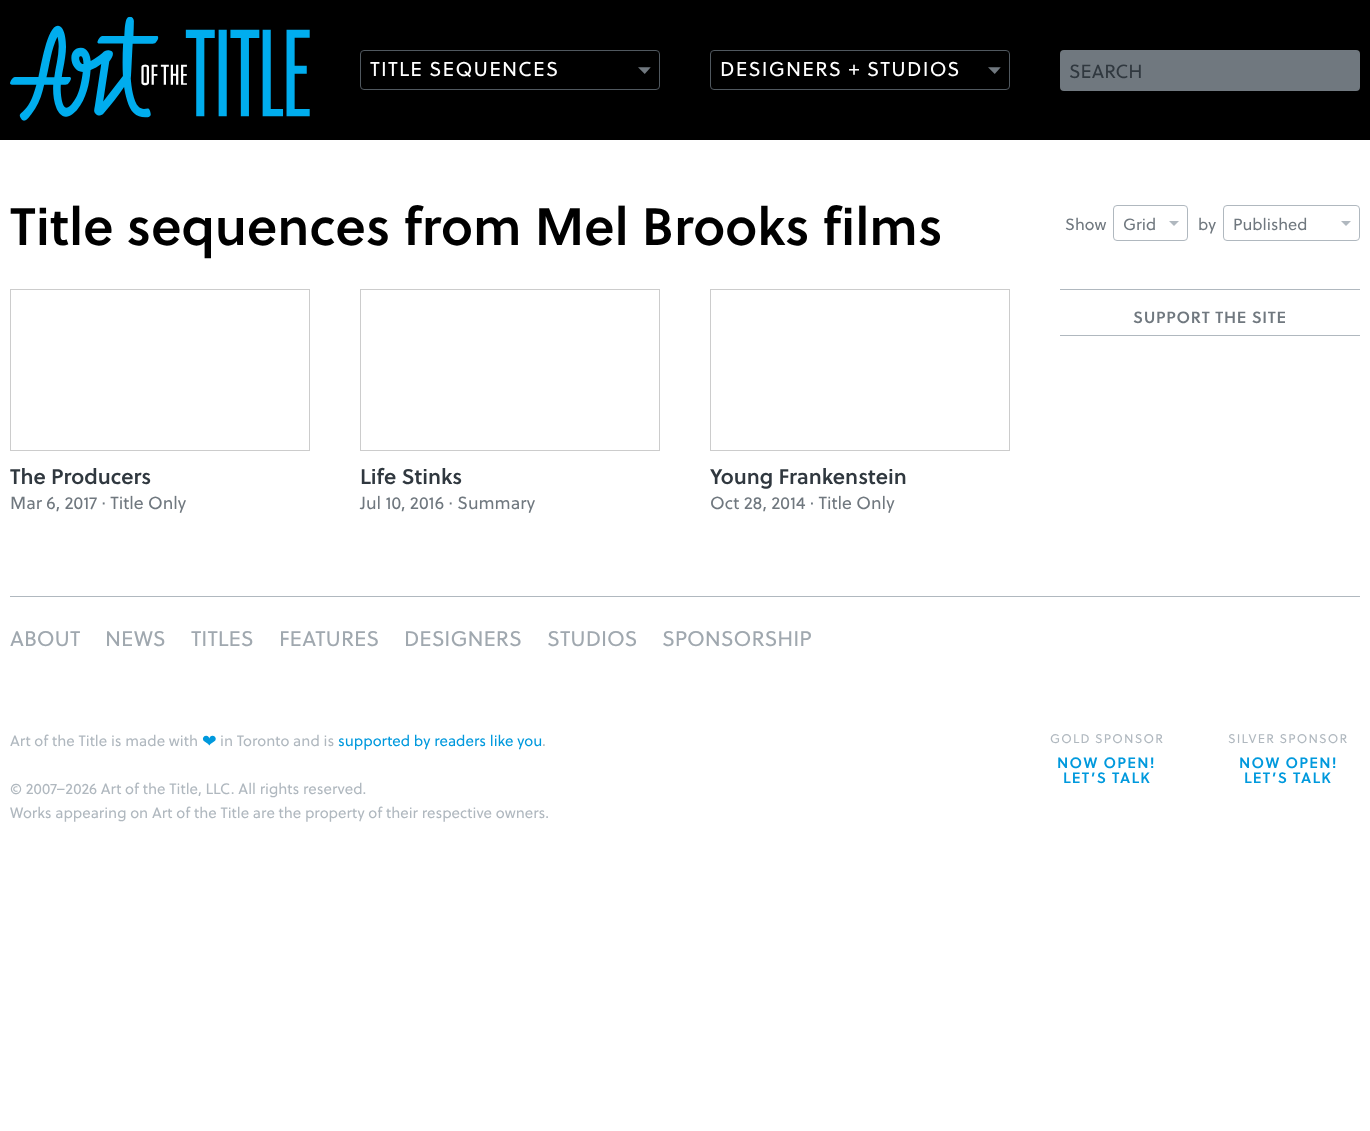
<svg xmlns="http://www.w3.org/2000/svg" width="1370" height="1131">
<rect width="100%" height="100%" fill="#fff"/>
<rect width="1370" height="140" fill="#000"/>
<image x="10" y="16" width="300" height="105" href="media/1.png"/>
<rect x="360.5" y="50.5" width="299" height="39" rx="3.5" fill="none" stroke="#50585f"/>
<text x="370" y="76" style="font-family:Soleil;font-size:20px;letter-spacing:1.25px;fill:#fff">TITLE SEQUENCES</text>
<image x="638" y="67" width="13" height="7" href="media/2.png"/>
<rect x="710.5" y="50.5" width="299" height="39" rx="3.5" fill="none" stroke="#50585f"/>
<text x="720" y="76" style="font-family:Soleil;font-size:20px;letter-spacing:1.25px;fill:#fff">DESIGNERS + STUDIOS</text>
<image x="988" y="67" width="13" height="7" href="media/2.png"/>
<rect x="1060" y="50" width="300" height="41" rx="4" fill="#70787f"/>
<text x="1069" y="78" style="font-family:Soleil;font-size:19px;fill:#30383f">SEARCH</text>
<text x="10" y="245" style="font-family:Soleil;font-size:52.5px;font-weight:600;fill:#000">Title sequences from Mel Brooks films</text>
<text x="1065" y="230" style="font-family:Soleil;font-size:16.25px;fill:#70787f">Show</text>
<rect x="1113.5" y="205.5" width="74" height="35" rx="3.5" fill="none" stroke="#b0b8bf"/>
<text x="1123" y="230" style="font-family:Soleil;font-size:16.25px;fill:#70787f">Grid</text>
<path d="M1169 221h10l-5 5z" fill="#b0b8bf"/>
<text x="1198" y="230" style="font-family:Soleil;font-size:16.25px;fill:#70787f">by</text>
<rect x="1223.5" y="205.5" width="136" height="35" rx="3.5" fill="none" stroke="#b0b8bf"/>
<text x="1233" y="230" style="font-family:Soleil;font-size:16.25px;fill:#70787f">Published</text>
<path d="M1341 221h10l-5 5z" fill="#b0b8bf"/>
<rect x="1060" y="289" width="300" height="1" fill="#b0b8bf"/>
<rect x="1060" y="335" width="300" height="1" fill="#b0b8bf"/>
<text x="1133" y="323" style="font-family:Soleil;font-size:16.25px;font-weight:600;letter-spacing:0.75px;fill:#70787f">SUPPORT THE SITE</text>
<rect x="10.5" y="289.5" width="299" height="161" fill="none" stroke="#ccc"/>
<text x="10" y="484" style="font-family:Soleil;font-size:21.25px;font-weight:600;fill:#30383f">The Producers</text>
<text x="10" y="509" style="font-family:Soleil;font-size:17.5px;fill:#70787f">Mar 6, 2017 · Title Only</text>
<rect x="360.5" y="289.5" width="299" height="161" fill="none" stroke="#ccc"/>
<text x="360" y="484" style="font-family:Soleil;font-size:21.25px;font-weight:600;fill:#30383f">Life Stinks</text>
<text x="360" y="509" style="font-family:Soleil;font-size:17.5px;fill:#70787f">Jul 10, 2016 · Summary</text>
<rect x="710.5" y="289.5" width="299" height="161" fill="none" stroke="#ccc"/>
<text x="710" y="484" style="font-family:Soleil;font-size:21.25px;font-weight:600;fill:#30383f">Young Frankenstein</text>
<text x="710" y="509" style="font-family:Soleil;font-size:17.5px;fill:#70787f">Oct 28, 2014 · Title Only</text>
<rect x="10" y="596" width="1350" height="1" fill="#b0b8bf"/>
<text x="10" y="646" style="font-family:Soleil;font-size:21.25px;fill:#a0a8af">ABOUT</text>
<text x="105" y="646" style="font-family:Soleil;font-size:21.25px;fill:#a0a8af">NEWS</text>
<text x="191" y="646" style="font-family:Soleil;font-size:21.25px;fill:#a0a8af">TITLES</text>
<text x="279" y="646" style="font-family:Soleil;font-size:21.25px;fill:#a0a8af">FEATURES</text>
<text x="404" y="646" style="font-family:Soleil;font-size:21.25px;fill:#a0a8af">DESIGNERS</text>
<text x="547" y="646" style="font-family:Soleil;font-size:21.25px;fill:#a0a8af">STUDIOS</text>
<text x="662" y="646" style="font-family:Soleil;font-size:21.25px;fill:#a0a8af">SPONSORSHIP</text>
<text x="10" y="746" style="font-family:Soleil;font-size:15px;fill:#b0b8bf">Art of the Title is made with</text>
<text x="202" y="747" style="font-family:DejaVu Sans;font-size:17.5px;fill:#09d">❤</text>
<text x="220" y="746" style="font-family:Soleil;font-size:15px;fill:#b0b8bf">in Toronto and is</text>
<text x="338" y="746" style="font-family:Soleil;font-size:15px;fill:#09d">supported by readers like you</text>
<text x="542" y="746" style="font-family:Soleil;font-size:15px;fill:#b0b8bf">.</text>
<text x="10" y="794" style="font-family:Soleil;font-size:15px;fill:#b0b8bf">© 2007–2026 Art of the Title, LLC. All rights reserved.</text>
<text x="10" y="818" style="font-family:Soleil;font-size:15px;fill:#b0b8bf">Works appearing on Art of the Title are the property of their respective owners.</text>
<text x="1050" y="743" style="font-family:Soleil;font-size:12.5px;letter-spacing:1.25px;fill:#b0b8bf">GOLD SPONSOR</text>
<text x="1057" y="768" style="font-family:Soleil;font-size:15px;font-weight:600;letter-spacing:1.25px;fill:#09d">NOW OPEN!</text>
<text x="1063" y="783" style="font-family:Soleil;font-size:15px;font-weight:600;letter-spacing:1.25px;fill:#09d">LET’S TALK</text>
<text x="1228" y="743" style="font-family:Soleil;font-size:12.5px;letter-spacing:1.25px;fill:#b0b8bf">SILVER SPONSOR</text>
<text x="1239" y="768" style="font-family:Soleil;font-size:15px;font-weight:600;letter-spacing:1.25px;fill:#09d">NOW OPEN!</text>
<text x="1244" y="783" style="font-family:Soleil;font-size:15px;font-weight:600;letter-spacing:1.25px;fill:#09d">LET’S TALK</text>
</svg>
